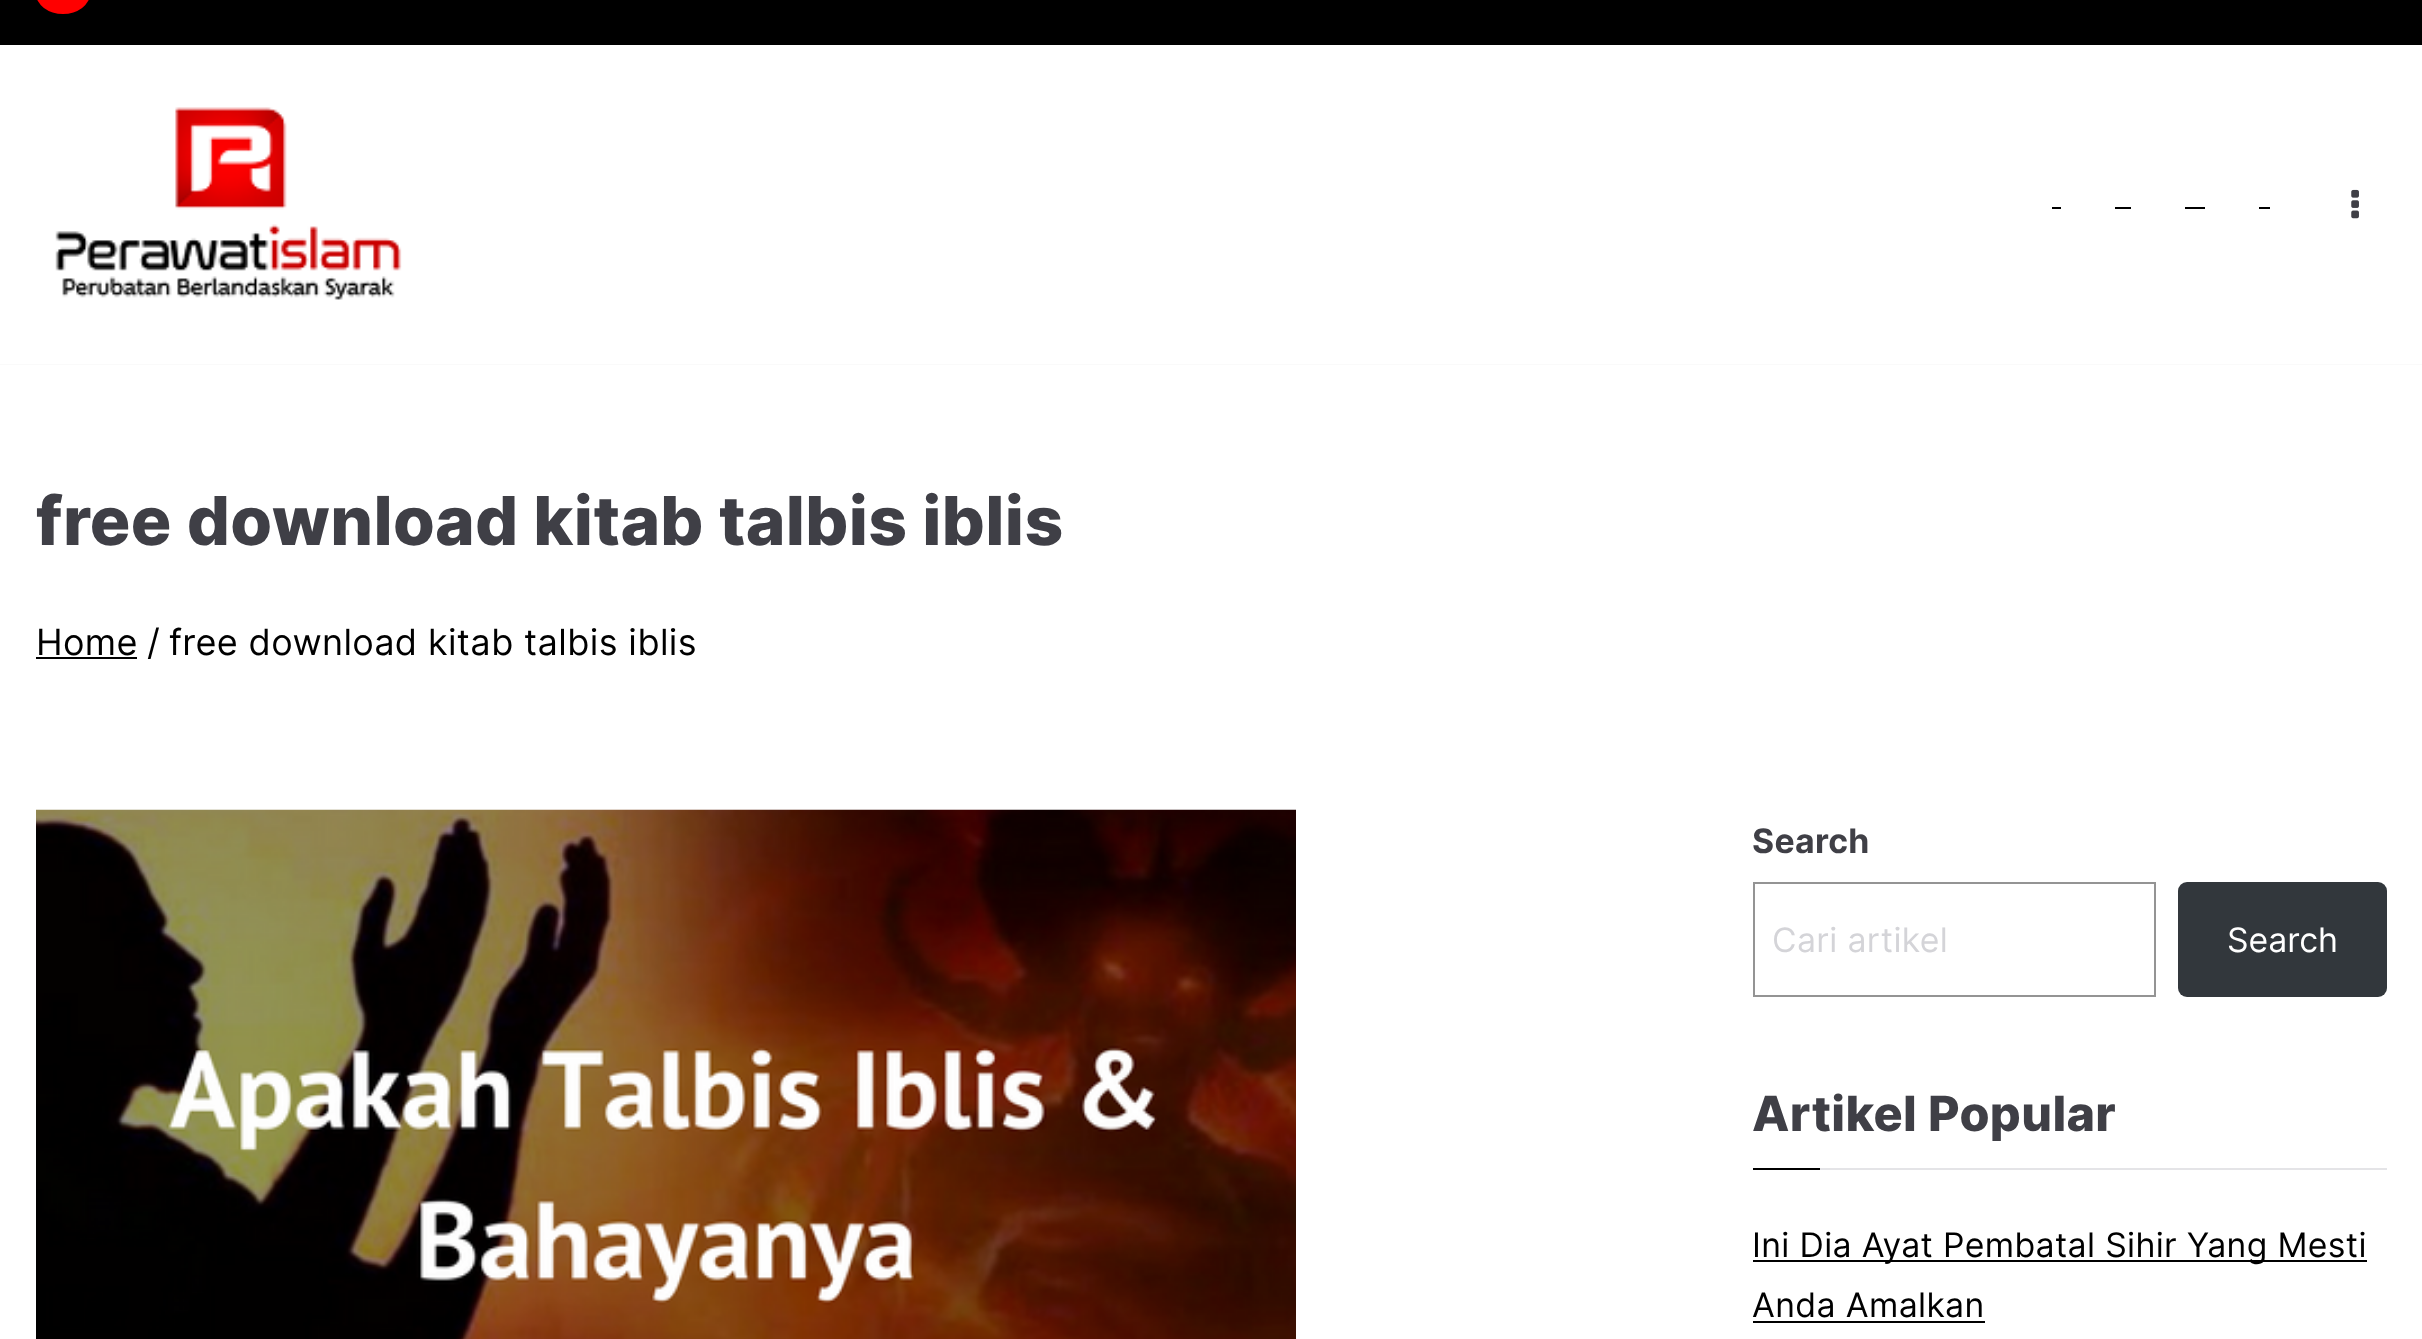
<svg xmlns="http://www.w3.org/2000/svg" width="2422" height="1339">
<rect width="100%" height="100%" fill="#fafafa"/>
<rect y="45" width="2422" height="319" fill="#fff"/>
<rect width="2422" height="45" fill="#000"/>
<rect x="36" y="-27" width="54" height="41" rx="27" fill="#f00"/>
<image x="55" y="107" width="347" height="193" href="media/1.png"/>
<rect x="2052" y="207" width="9" height="2" fill="#000"/>
<rect x="2115" y="207" width="16" height="2" fill="#000"/>
<rect x="2185" y="207" width="20" height="2" fill="#000"/>
<rect x="2259" y="207" width="11" height="2" fill="#000"/>
<image x="2351" y="189" width="8" height="30" href="media/2.png"/>
<rect y="365" width="2422" height="974" fill="#fff"/>
<text x="36" y="545" style="font-family:Inter;font-size:67.5px;font-weight:800;letter-spacing:0.35px;fill:#3f3f46">free download kitab talbis iblis</text>
<text x="36" y="655" style="font-family:Inter;font-size:36px;letter-spacing:0.35px;fill:#000">Home</text>
<rect x="36" y="657" width="101" height="2" fill="#000"/>
<text x="147" y="655" style="font-family:Inter;font-size:36px;letter-spacing:0.35px;fill:#000">/</text>
<text x="169" y="655" style="font-family:Inter;font-size:36px;letter-spacing:0.35px;fill:#000">free download kitab talbis iblis</text>
<image x="36" y="809" width="1260" height="530" href="media/3.png"/>
<text x="1752" y="853" style="font-family:Inter;font-size:33.75px;font-weight:bold;letter-spacing:0.35px;fill:#3f3f46">Search</text>
<rect x="1754" y="883" width="401" height="113" fill="none" stroke="#949494" stroke-width="2"/>
<text x="1772" y="952" style="font-family:Inter;font-size:33.75px;letter-spacing:0.35px;fill:#d4d4d8">Cari artikel</text>
<rect x="2178" y="882" width="209" height="115" rx="9" fill="#32373c"/>
<text x="2227" y="952" style="font-family:Inter;font-size:33.75px;fill:#fff">Search</text>
<rect x="1820" y="1168" width="567" height="2" fill="#e4e4e7"/>
<text x="1752" y="1131" style="font-family:Inter;font-size:48.5px;font-weight:800;letter-spacing:0.35px;fill:#3f3f46">Artikel Popular</text>
<rect x="1753" y="1168" width="67" height="2" fill="#000"/>
<rect x="1753" y="1260" width="614" height="2" fill="#000"/>
<text x="1752" y="1257" style="font-family:Inter;font-size:33.75px;letter-spacing:0.35px;fill:#000">Ini Dia Ayat Pembatal Sihir Yang Mesti</text>
<text x="1752" y="1317" style="font-family:Inter;font-size:33.75px;letter-spacing:0.35px;fill:#000">Anda Amalkan</text>
<rect x="1753" y="1321" width="232" height="2" fill="#000"/>
</svg>
